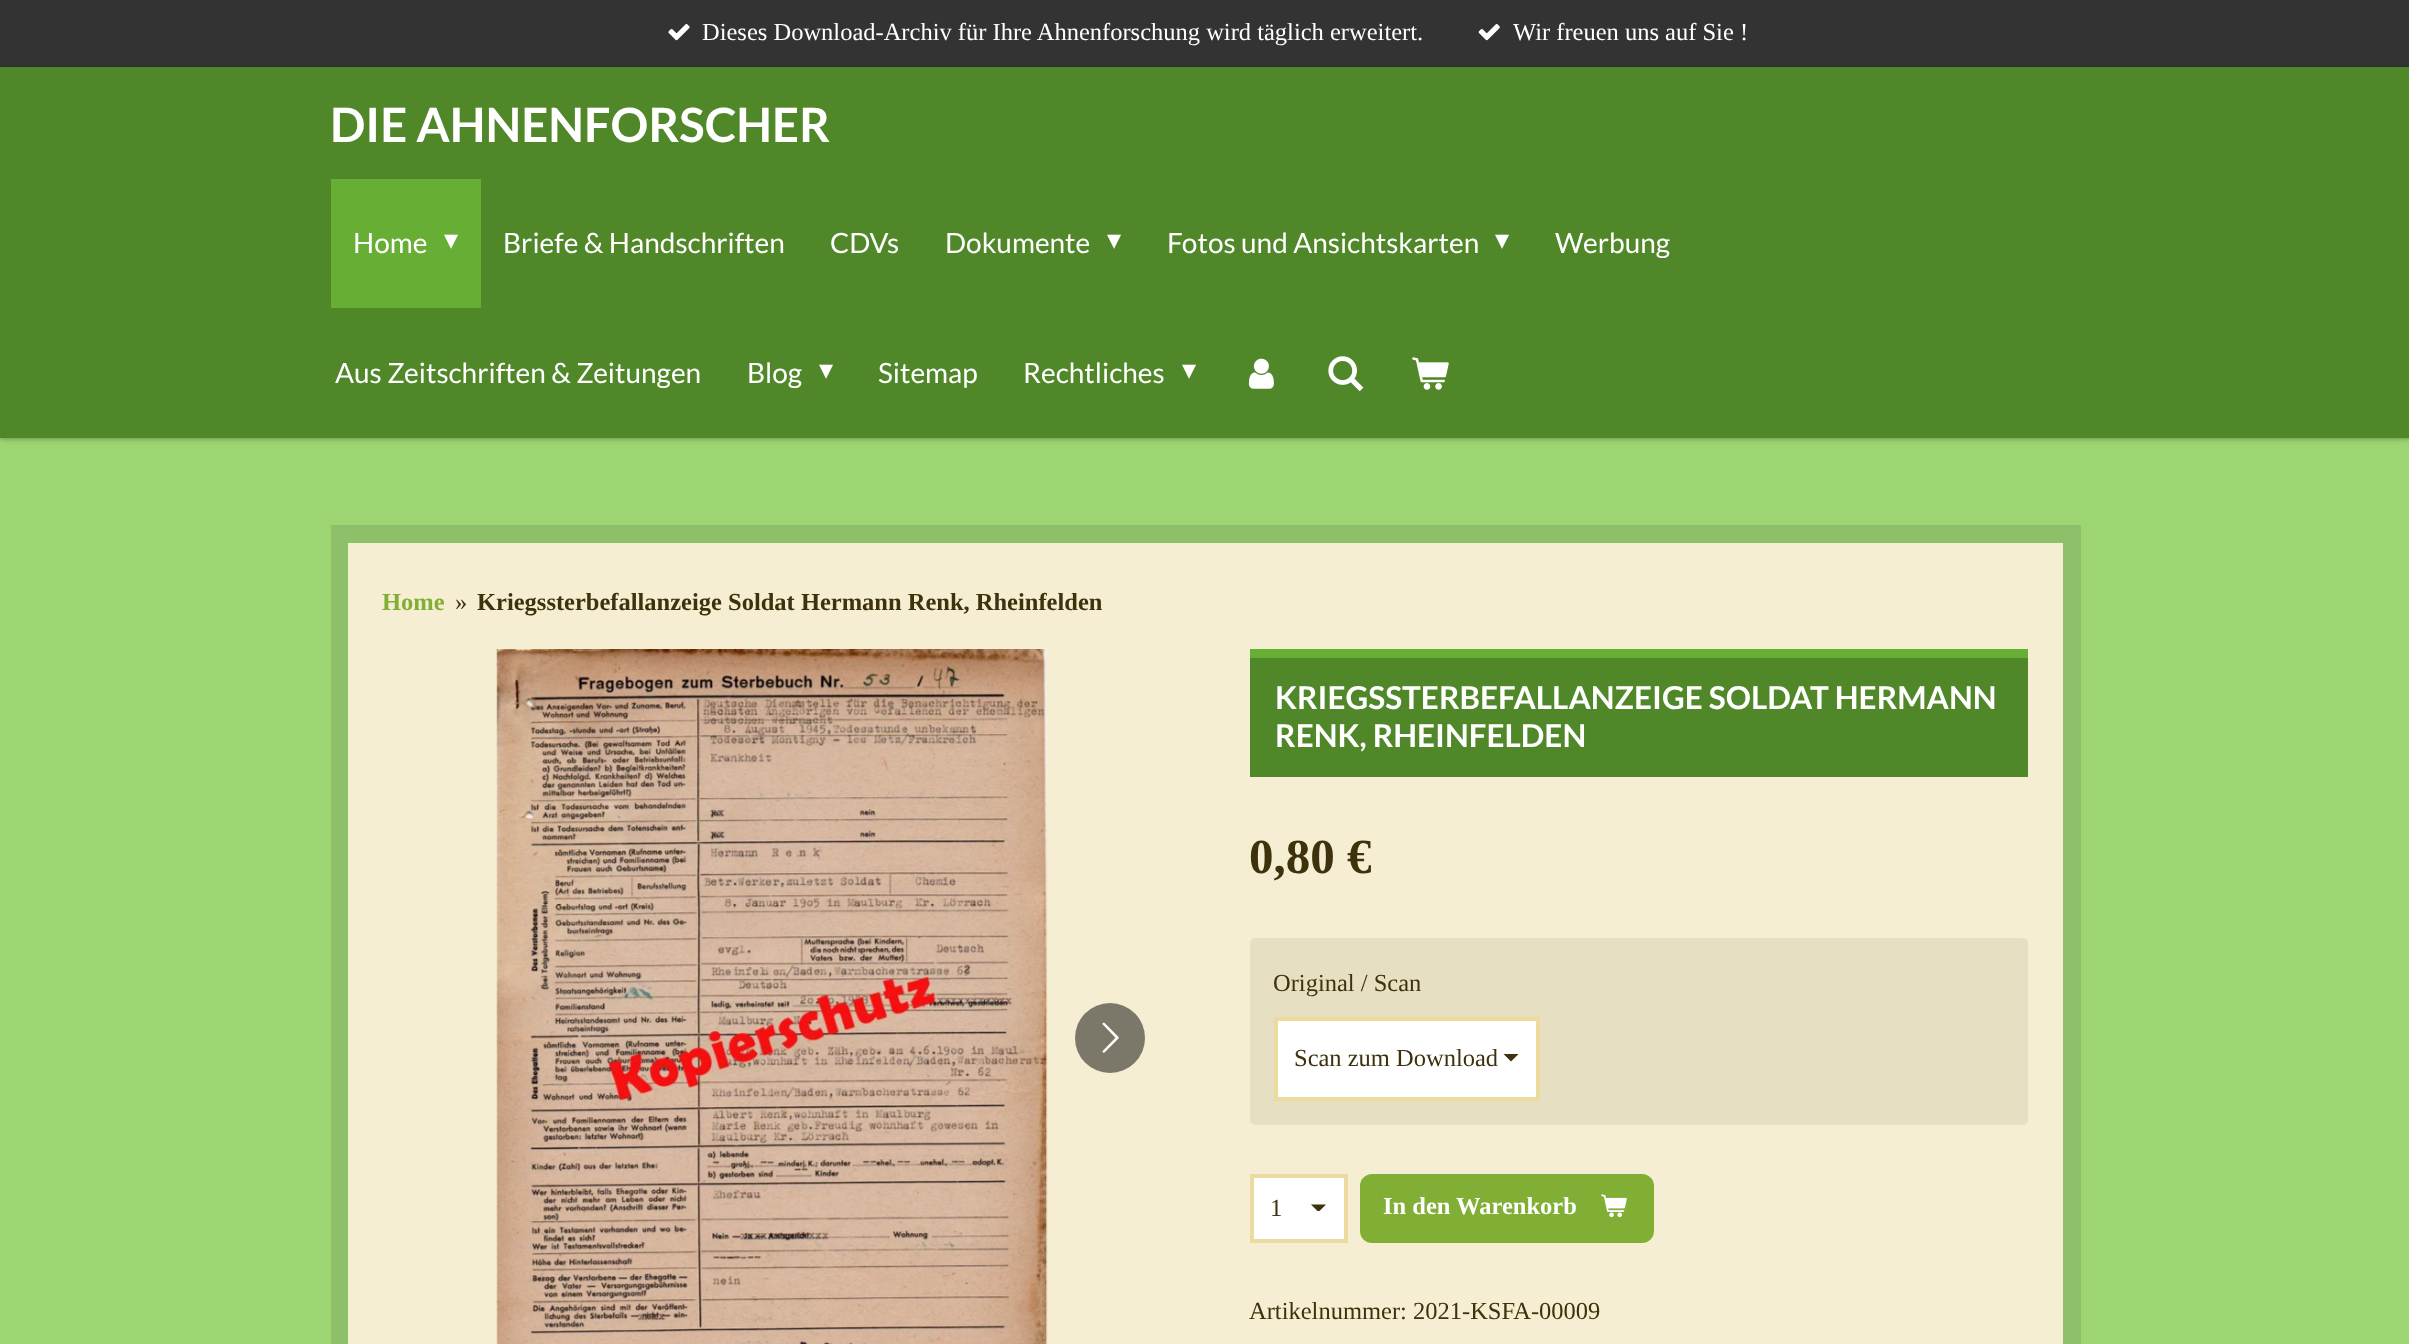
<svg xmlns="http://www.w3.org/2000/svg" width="2409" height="1344">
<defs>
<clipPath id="clip1"><rect x="1311" y="1204" width="16" height="7"/></clipPath>
</defs>
<rect width="100%" height="100%" fill="#9dd573"/>
<rect width="2409" height="67" fill="#333"/>
<image x="668" y="24" width="22" height="17" href="media/1.png"/>
<text x="702" y="40" style="font-family:Liberation Serif;font-size:24.5px;fill:#fff">Dieses Download-Archiv für Ihre Ahnenforschung wird täglich erweitert.</text>
<image x="1478" y="24" width="22" height="17" href="media/2.png"/>
<text x="1513" y="40" style="font-family:Liberation Serif;font-size:24.5px;fill:#fff">Wir freuen uns auf Sie !</text>
<rect y="68" width="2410" height="371" fill="#0000004d" filter="blur(2.5px)"/>
<rect y="67" width="2409" height="371" fill="#508729"/>
<text x="330" y="142" style="font-family:Lato;font-size:47.25px;font-weight:bold;fill:#fff">DIE AHNENFORSCHER</text>
<rect x="331" y="179" width="150" height="129" fill="#67ae35"/>
<text x="353" y="253" style="font-family:Lato;font-size:28px;fill:#fff">Home</text>
<text x="444" y="249" style="font-family:DejaVu Sans;font-size:28px;fill:#fff">▾</text>
<text x="503" y="253" style="font-family:Lato;font-size:28px;fill:#fff">Briefe &amp; Handschriften</text>
<text x="830" y="253" style="font-family:Lato;font-size:28px;fill:#fff">CDVs</text>
<text x="945" y="253" style="font-family:Lato;font-size:28px;fill:#fff">Dokumente</text>
<text x="1107" y="249" style="font-family:DejaVu Sans;font-size:28px;fill:#fff">▾</text>
<text x="1167" y="253" style="font-family:Lato;font-size:28px;fill:#fff">Fotos und Ansichtskarten</text>
<text x="1495" y="249" style="font-family:DejaVu Sans;font-size:28px;fill:#fff">▾</text>
<text x="1555" y="253" style="font-family:Lato;font-size:28px;fill:#fff">Werbung</text>
<text x="335" y="383" style="font-family:Lato;font-size:28px;fill:#fff">Aus Zeitschriften &amp; Zeitungen</text>
<text x="747" y="383" style="font-family:Lato;font-size:28px;fill:#fff">Blog</text>
<text x="819" y="379" style="font-family:DejaVu Sans;font-size:28px;fill:#fff">▾</text>
<text x="878" y="383" style="font-family:Lato;font-size:28px;fill:#fff">Sitemap</text>
<text x="1023" y="383" style="font-family:Lato;font-size:28px;fill:#fff">Rechtliches</text>
<text x="1182" y="379" style="font-family:DejaVu Sans;font-size:28px;fill:#fff">▾</text>
<image x="1248" y="358" width="26" height="31" href="media/3.png"/>
<image x="1328" y="356" width="36" height="36" href="media/4.png"/>
<image x="1412" y="357" width="37" height="33" href="media/5.png"/>
<rect x="331" y="525" width="1750" height="819" fill="#8dc068"/>
<rect x="348" y="543" width="1715" height="801" fill="#f6eed2"/>
<text x="382" y="610" style="font-family:Liberation Serif;font-size:24.5px;font-weight:bold;fill:#81af36">Home</text>
<text x="455" y="610" style="font-family:Liberation Serif;font-size:24.5px;fill:#3d320c">»</text>
<text x="477" y="610" style="font-family:Liberation Serif;font-size:24.5px;font-weight:bold;fill:#3d320c">Kriegssterbefallanzeige Soldat Hermann Renk, Rheinfelden</text>
<image x="496" y="649" width="552" height="695" href="media/6.png"/>
<circle cx="1110" cy="1038" r="35" fill="#7b7769"/>
<image x="1102" y="1022" width="17" height="31" href="media/7.png"/>
<rect x="1250" y="658" width="778" height="119" fill="#508729"/>
<rect x="1250" y="649" width="778" height="9" fill="#67ae35"/>
<text x="1275" y="709" style="font-family:Lato;font-size:31.5px;font-weight:bold;fill:#fff">KRIEGSSTERBEFALLANZEIGE SOLDAT HERMANN</text>
<text x="1275" y="747" style="font-family:Lato;font-size:31.5px;font-weight:bold;fill:#fff">RENK, RHEINFELDEN</text>
<text x="1249" y="873" style="font-family:Liberation Serif;font-size:49px;font-weight:bold;fill:#3d320c">0,80 €</text>
<rect x="1250" y="938" width="778" height="187" rx="5" fill="#e7dfc2"/>
<text x="1273" y="991" style="font-family:Liberation Serif;font-size:24.5px;fill:#3d320c">Original / Scan</text>
<rect x="1278" y="1021" width="258" height="76" fill="#fff"/>
<path d="M1511 1061.5l-7.5-7.5h15z" fill="#3d320c"/>
<rect x="1276" y="1019" width="262" height="80" fill="none" stroke="#ecdb9e" stroke-width="4"/>
<text x="1294" y="1066" style="font-family:Liberation Serif;font-size:24.5px;fill:#3d320c">Scan zum Download</text>
<rect x="1254" y="1178" width="90" height="61" fill="#fff"/>
<g clip-path="url(#clip1)">
<path d="M1318.5 1212l-7.5-7.5h15z" fill="#3d320c"/>
</g>
<rect x="1252" y="1176" width="94" height="65" fill="none" stroke="#ecdb9e" stroke-width="4"/>
<text x="1270" y="1216" style="font-family:Liberation Serif;font-size:24.5px;fill:#3d320c">1</text>
<rect x="1360" y="1174" width="294" height="69" rx="12" fill="#81af36"/>
<text x="1383" y="1214" style="font-family:Liberation Serif;font-size:24.5px;font-weight:bold;fill:#fff">In den Warenkorb</text>
<image x="1601" y="1194" width="26" height="24" href="media/8.png"/>
<text x="1249" y="1319" style="font-family:Liberation Serif;font-size:24.5px;fill:#3d320c">Artikelnummer: 2021-KSFA-00009</text>
</svg>
